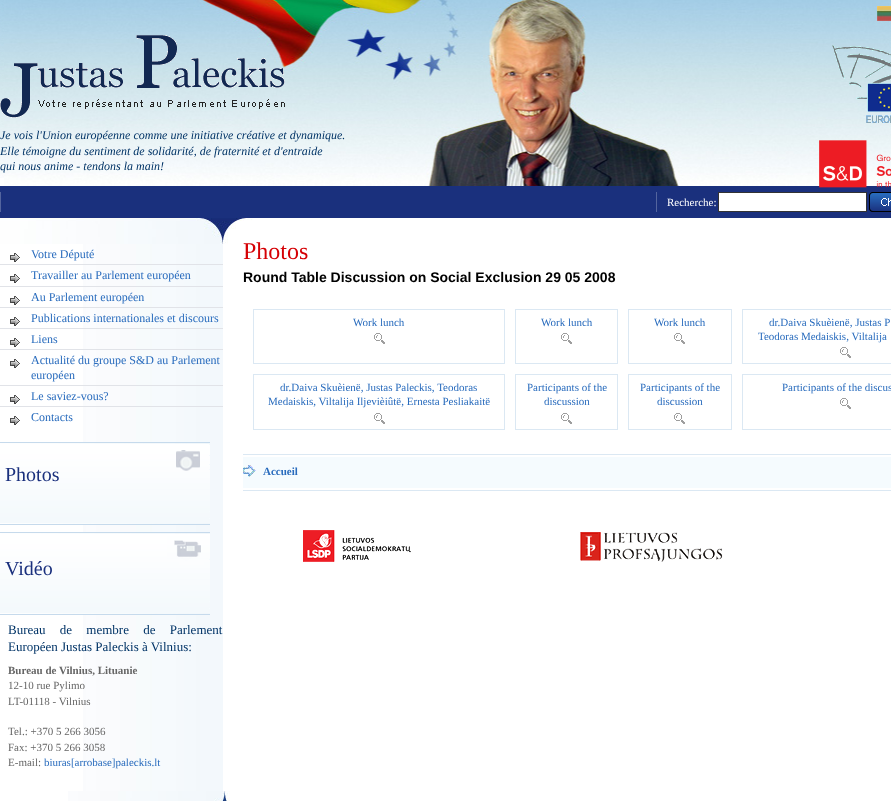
<svg xmlns="http://www.w3.org/2000/svg" width="891" height="801">
<rect width="100%" height="100%" fill="#fff"/>
<image x="0" y="0" width="891" height="178" href="media/1.png"/>
<image x="4" y="0" width="885" height="186" href="media/2.png"/>
<image x="0" y="35" width="285" height="83" href="media/3.png"/>
<text x="0" y="139" style="font-family:Liberation Serif;font-size:12px;font-style:italic;fill:#036">Je vois l'Union européenne comme une initiative créative et dynamique.</text>
<text x="0" y="155" style="font-family:Liberation Serif;font-size:12px;font-style:italic;fill:#036">Elle témoigne du sentiment de solidarité, de fraternité et d'entraide</text>
<text x="0" y="170" style="font-family:Liberation Serif;font-size:12px;font-style:italic;fill:#036">qui nous anime - tendons la main!</text>
<image x="877" y="6" width="14" height="15" href="media/4.png"/>
<image x="832" y="45" width="59" height="78" href="media/5.png"/>
<rect y="186" width="891" height="32" fill="#1a307d"/>
<image x="819" y="140" width="72" height="48" href="media/6.png"/>
<rect y="192" width="1" height="20" fill="#53649e"/>
<rect x="656" y="192" width="1" height="20" fill="#53649e"/>
<text x="667" y="206" style="font-family:Liberation Serif;font-size:11px;fill:#fff">Recherche:</text>
<rect x="718.5" y="192.5" width="148" height="19" fill="#fff" stroke="#333"/>
<image x="869" y="192" width="22" height="20" href="media/7.png"/>
<image x="0" y="218" width="253" height="26" href="media/8.png"/>
<image x="83" y="244" width="140" height="547" href="media/9.png"/>
<image x="10" y="253" width="10" height="9" href="media/10.png"/>
<rect y="264" width="223" height="1" fill="#e1e3e8"/>
<text x="31" y="258" style="font-family:Liberation Serif;font-size:12px;fill:#286bbd">Votre Député</text>
<image x="10" y="274" width="10" height="9" href="media/10.png"/>
<rect y="286" width="223" height="1" fill="#e1e3e8"/>
<text x="31" y="279" style="font-family:Liberation Serif;font-size:12px;fill:#286bbd">Travailler au Parlement européen</text>
<image x="10" y="296" width="10" height="9" href="media/10.png"/>
<rect y="307" width="223" height="1" fill="#e1e3e8"/>
<text x="31" y="301" style="font-family:Liberation Serif;font-size:12px;fill:#286bbd">Au Parlement européen</text>
<image x="10" y="317" width="10" height="9" href="media/10.png"/>
<rect y="328" width="223" height="1" fill="#e1e3e8"/>
<text x="31" y="322" style="font-family:Liberation Serif;font-size:12px;fill:#286bbd">Publications internationales et discours</text>
<image x="10" y="338" width="10" height="9" href="media/10.png"/>
<rect y="349" width="223" height="1" fill="#e1e3e8"/>
<text x="31" y="343" style="font-family:Liberation Serif;font-size:12px;fill:#286bbd">Liens</text>
<image x="10" y="359" width="10" height="9" href="media/10.png"/>
<rect y="385" width="223" height="1" fill="#e1e3e8"/>
<text x="31" y="364" style="font-family:Liberation Serif;font-size:12px;fill:#286bbd">Actualité du groupe S&amp;D au Parlement</text>
<text x="31" y="379" style="font-family:Liberation Serif;font-size:12px;fill:#286bbd">européen</text>
<image x="10" y="395" width="10" height="9" href="media/10.png"/>
<rect y="406" width="223" height="1" fill="#e1e3e8"/>
<text x="31" y="400" style="font-family:Liberation Serif;font-size:12px;fill:#286bbd">Le saviez-vous?</text>
<image x="10" y="416" width="10" height="9" href="media/10.png"/>
<text x="31" y="421" style="font-family:Liberation Serif;font-size:12px;fill:#286bbd">Contacts</text>
<image x="0" y="442" width="210" height="83" href="media/11.png"/>
<text x="5" y="481" style="font-family:Liberation Serif;font-size:20px;fill:#1a307d">Photos</text>
<image x="0" y="532" width="210" height="83" href="media/12.png"/>
<text x="5" y="575" style="font-family:Liberation Serif;font-size:20px;fill:#1a307d">Vidéo</text>
<text x="8" y="634" word-spacing="11" style="font-family:Liberation Serif;font-size:13px;fill:#036">Bureau de membre de Parlement</text>
<text x="8" y="651" style="font-family:Liberation Serif;font-size:13px;fill:#036">Européen Justas Paleckis à Vilnius:</text>
<text x="8" y="674" style="font-family:Liberation Serif;font-size:11px;font-weight:bold;fill:#666">Bureau de Vilnius, Lituanie</text>
<text x="8" y="689" style="font-family:Liberation Serif;font-size:11px;fill:#666">12-10 rue Pylimo</text>
<text x="8" y="705" style="font-family:Liberation Serif;font-size:11px;fill:#666">LT-01118 - Vilnius</text>
<text x="8" y="735" style="font-family:Liberation Serif;font-size:11px;fill:#666">Tel.: +370 5 266 3056</text>
<text x="8" y="751" style="font-family:Liberation Serif;font-size:11px;fill:#666">Fax: +370 5 266 3058</text>
<text x="8" y="766" style="font-family:Liberation Serif;font-size:11px;fill:#666">E-mail:</text>
<text x="44" y="766" style="font-family:Liberation Serif;font-size:11px;fill:#286bbd">biuras[arrobase]paleckis.lt</text>
<text x="243" y="259" style="font-family:Liberation Serif;font-size:24px;fill:#d50005">Photos</text>
<text x="243" y="282" style="font-family:Liberation Sans;font-size:14px;font-weight:bold;fill:#000">Round Table Discussion on Social Exclusion 29 05 2008</text>
<rect x="253.5" y="309.5" width="251" height="54" fill="none" stroke="#dbe8f3"/>
<text x="353" y="326" style="font-family:Liberation Serif;font-size:11px;fill:#286bbd">Work lunch</text>
<image x="374" y="333" width="11" height="11" href="media/13.png"/>
<rect x="515.5" y="309.5" width="102" height="54" fill="none" stroke="#dbe8f3"/>
<text x="541" y="326" style="font-family:Liberation Serif;font-size:11px;fill:#286bbd">Work lunch</text>
<image x="561" y="333" width="11" height="11" href="media/13.png"/>
<rect x="628.5" y="309.5" width="103" height="54" fill="none" stroke="#dbe8f3"/>
<text x="654" y="326" style="font-family:Liberation Serif;font-size:11px;fill:#286bbd">Work lunch</text>
<image x="674" y="333" width="11" height="11" href="media/13.png"/>
<rect x="742.5" y="309.5" width="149" height="54" fill="none" stroke="#dbe8f3"/>
<text x="769" y="326" style="font-family:Liberation Serif;font-size:11px;fill:#286bbd">dr.Daiva Skuèienë, Justas P</text>
<text x="758" y="340" style="font-family:Liberation Serif;font-size:11px;fill:#286bbd">Teodoras Medaiskis, Viltalija</text>
<image x="840" y="347" width="11" height="11" href="media/13.png"/>
<rect x="253.5" y="374.5" width="251" height="55" fill="none" stroke="#dbe8f3"/>
<text x="280" y="391" style="font-family:Liberation Serif;font-size:11px;fill:#286bbd">dr.Daiva Skuèienë, Justas Paleckis, Teodoras</text>
<text x="268" y="405" style="font-family:Liberation Serif;font-size:11px;fill:#286bbd">Medaiskis, Viltalija Iljevièiûtë, Ernesta Pesliakaitë</text>
<image x="374" y="413" width="11" height="11" href="media/13.png"/>
<rect x="515.5" y="374.5" width="102" height="55" fill="none" stroke="#dbe8f3"/>
<text x="527" y="391" style="font-family:Liberation Serif;font-size:11px;fill:#286bbd">Participants of the</text>
<text x="544" y="405" style="font-family:Liberation Serif;font-size:11px;fill:#286bbd">discussion</text>
<image x="561" y="413" width="11" height="11" href="media/13.png"/>
<rect x="628.5" y="374.5" width="103" height="55" fill="none" stroke="#dbe8f3"/>
<text x="640" y="391" style="font-family:Liberation Serif;font-size:11px;fill:#286bbd">Participants of the</text>
<text x="657" y="405" style="font-family:Liberation Serif;font-size:11px;fill:#286bbd">discussion</text>
<image x="674" y="413" width="11" height="11" href="media/13.png"/>
<rect x="742.5" y="374.5" width="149" height="55" fill="none" stroke="#dbe8f3"/>
<text x="782" y="391" style="font-family:Liberation Serif;font-size:11px;fill:#286bbd">Participants of the discus</text>
<image x="840" y="398" width="11" height="11" href="media/13.png"/>
<image x="243" y="454" width="648" height="37" href="media/14.png"/>
<image x="243" y="465" width="13" height="12" href="media/15.png"/>
<text x="263" y="475" style="font-family:Liberation Serif;font-size:11px;font-weight:bold;fill:#286bbd">Accueil</text>
<image x="303" y="530" width="108" height="32" href="media/16.png"/>
<image x="580" y="532" width="143" height="30" href="media/17.png"/>
<image x="68" y="791" width="162" height="10" href="media/18.png"/>
</svg>
